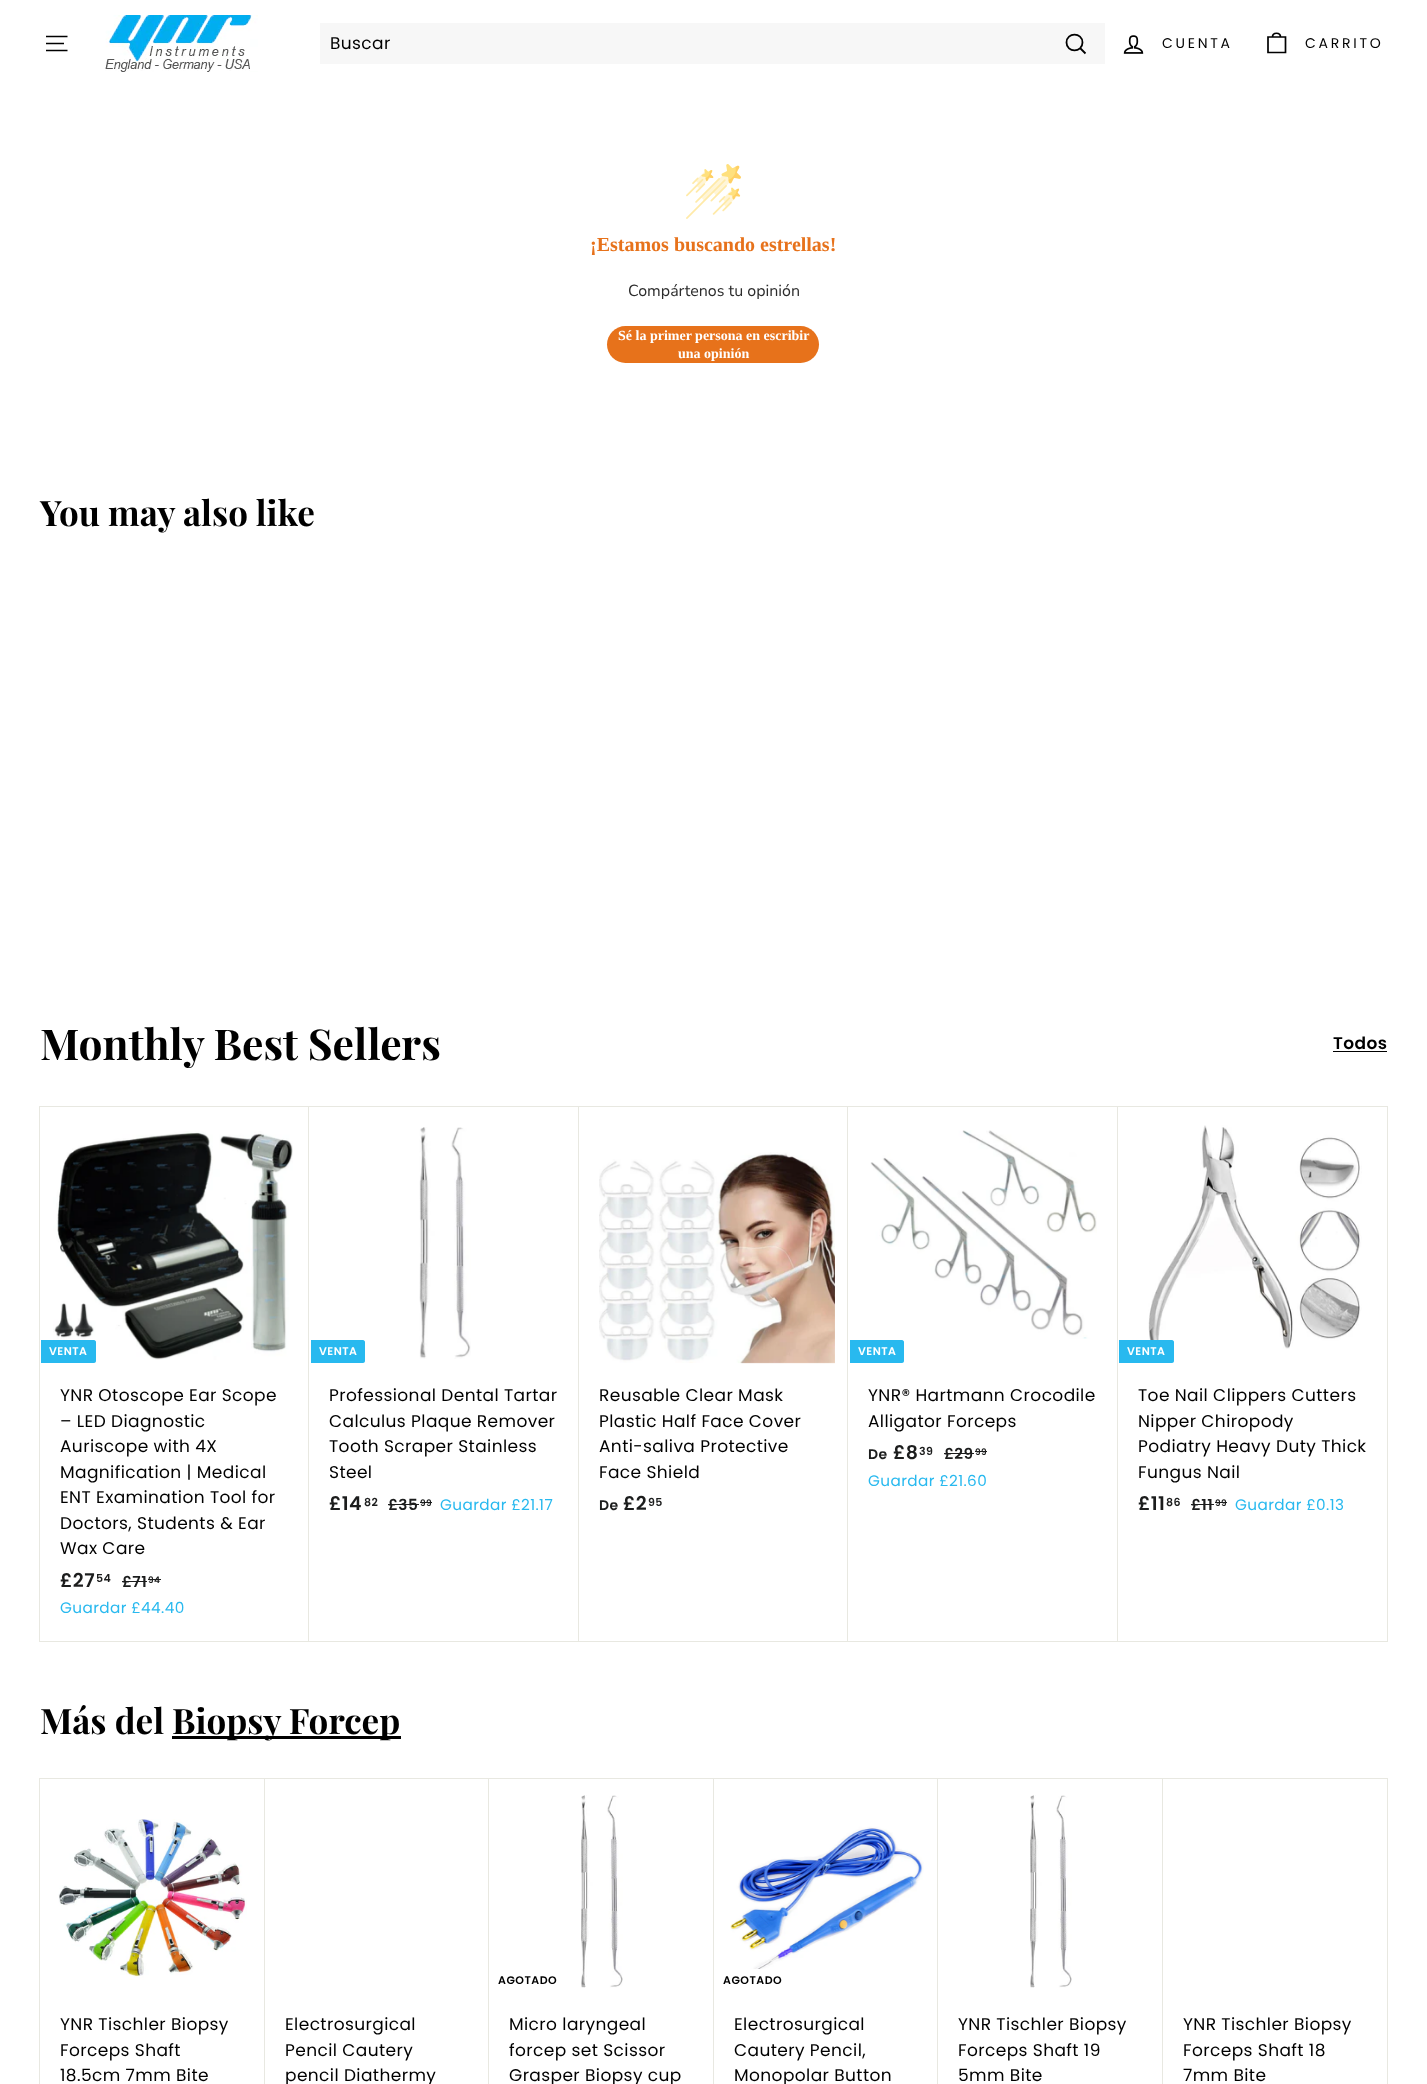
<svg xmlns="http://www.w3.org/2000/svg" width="1427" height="2084">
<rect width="100%" height="100%" fill="#fff"/>
<path d="M46 36.5h21.5m-21.5 7h18m-18 7h21.5" fill="none" stroke="#000" stroke-width="1.7"/>
<image x="105" y="15" width="153" height="57" href="media/1.png"/>
<rect x="320" y="23" width="785" height="41" fill="#f7f7f7"/>
<text x="330" y="49" style="font-family:Poppins;font-size:17px;letter-spacing:0.4px;fill:#000">Buscar</text>
<path d="M1082.5 42.5c0 10.5-16 10.5-16 0c0-10.5 16-10.5 16 0zm3 11l-5-5" fill="none" stroke="#000" stroke-width="1.8"/>
<image x="1123" y="35" width="21" height="19" href="media/2.png"/>
<text x="1162" y="48" style="font-family:Poppins;font-size:14px;letter-spacing:2.75px;fill:#000">CUENTA</text>
<path d="M1272.5 37c0-5 8-5 8 0m-12.5 0h17.5v15.5h-17.5z" fill="none" stroke="#000" stroke-width="1.7"/>
<text x="1305" y="48" style="font-family:Poppins;font-size:14px;letter-spacing:2.75px;fill:#000">CARRITO</text>
<image x="686" y="164" width="55" height="55" href="media/3.png"/>
<text x="590" y="251" style="font-family:Liberation Serif;font-size:20px;font-weight:bold;fill:#e7721b">¡Estamos buscando estrellas!</text>
<text x="628" y="296" style="font-family:Nunito Sans;font-size:16px;font-weight:200;fill:#2c2c2c">Compártenos tu opinión</text>
<rect x="607" y="326" width="212" height="37" rx="18.5" fill="#e7721b"/>
<text x="618" y="340" style="font-family:Liberation Serif;font-size:14px;font-weight:bold;fill:#fff">Sé la primer persona en escribir</text>
<text x="678" y="358" style="font-family:Liberation Serif;font-size:14px;font-weight:bold;fill:#fff">una opinión</text>
<text x="40" y="526" style="font-family:Playfair Display;font-size:35px;font-weight:bold;fill:#000">You may also like</text>
<text x="40" y="1060" style="font-family:Playfair Display;font-size:42.5px;font-weight:bold;fill:#000">Monthly Best Sellers</text>
<text x="1333" y="1049" style="font-family:Poppins;font-size:17px;font-weight:600;letter-spacing:0.4px;fill:#000">Todos</text>
<rect x="1333" y="1051" width="54" height="1" fill="#000"/>
<image x="53" y="1131" width="240" height="229" href="media/4.png"/>
<rect x="122" y="1581" width="25" height="1" fill="#1c1d1d"/>
<rect x="148" y="1579" width="13" height="1" fill="#1c1d1d"/>
<rect x="39.5" y="1106.5" width="270" height="535" fill="none" stroke="#e8e8e1"/>
<path d="M41 1340h53c1 0 2 1 2 2v19c0 1-1 2-2 2h-53z" fill="#28b9ef"/>
<text x="49" y="1355" style="font-family:Poppins;font-size:11px;font-weight:600;letter-spacing:0.5px;fill:#fff">VENTA</text>
<text x="60" y="1401" style="font-family:Poppins;font-size:17px;letter-spacing:0.4px;fill:#000">YNR Otoscope Ear Scope</text>
<text x="60" y="1427" style="font-family:Poppins;font-size:17px;letter-spacing:0.4px;fill:#000">– LED Diagnostic</text>
<text x="60" y="1452" style="font-family:Poppins;font-size:17px;letter-spacing:0.4px;fill:#000">Auriscope with 4X</text>
<text x="60" y="1478" style="font-family:Poppins;font-size:17px;letter-spacing:0.4px;fill:#000">Magnification | Medical</text>
<text x="60" y="1503" style="font-family:Poppins;font-size:17px;letter-spacing:0.4px;fill:#000">ENT Examination Tool for</text>
<text x="60" y="1529" style="font-family:Poppins;font-size:17px;letter-spacing:0.4px;fill:#000">Doctors, Students &amp; Ear</text>
<text x="60" y="1554" style="font-family:Poppins;font-size:17px;letter-spacing:0.4px;fill:#000">Wax Care</text>
<text x="60" y="1587" style="font-family:Poppins;font-size:19px;font-weight:600;letter-spacing:0.4px;fill:#1c1d1d">£27</text>
<text x="96" y="1582" style="font-family:Poppins;font-size:11px;font-weight:600;letter-spacing:0.4px;fill:#1c1d1d">54</text>
<text x="122" y="1587" style="font-family:Poppins;font-size:15.25px;font-weight:600;letter-spacing:0.4px;fill:#1c1d1d">£71</text>
<text x="148" y="1583" style="font-family:Poppins;font-size:9px;font-weight:600;letter-spacing:0.4px;fill:#1c1d1d">94</text>
<text x="60" y="1613" style="font-family:Poppins;font-size:15.25px;letter-spacing:0.4px;fill:#28b9ef">Guardar £44.40</text>
<rect x="309" y="1107" width="1" height="534" fill="#fff"/>
<image x="419" y="1127" width="52" height="232" href="media/5.png"/>
<rect x="388" y="1504" width="31" height="1" fill="#1c1d1d"/>
<rect x="420" y="1502" width="12" height="1" fill="#1c1d1d"/>
<rect x="308.5" y="1106.5" width="271" height="535" fill="none" stroke="#e8e8e1"/>
<path d="M311 1340h52c1 0 2 1 2 2v19c0 1-1 2-2 2h-52z" fill="#28b9ef"/>
<text x="319" y="1355" style="font-family:Poppins;font-size:11px;font-weight:600;letter-spacing:0.5px;fill:#fff">VENTA</text>
<text x="329" y="1401" style="font-family:Poppins;font-size:17px;letter-spacing:0.4px;fill:#000">Professional Dental Tartar</text>
<text x="329" y="1427" style="font-family:Poppins;font-size:17px;letter-spacing:0.4px;fill:#000">Calculus Plaque Remover</text>
<text x="329" y="1452" style="font-family:Poppins;font-size:17px;letter-spacing:0.4px;fill:#000">Tooth Scraper Stainless</text>
<text x="329" y="1478" style="font-family:Poppins;font-size:17px;letter-spacing:0.4px;fill:#000">Steel</text>
<text x="329" y="1510" style="font-family:Poppins;font-size:19px;font-weight:600;letter-spacing:0.4px;fill:#1c1d1d">£14</text>
<text x="364" y="1506" style="font-family:Poppins;font-size:11px;font-weight:600;letter-spacing:0.4px;fill:#1c1d1d">82</text>
<text x="388" y="1510" style="font-family:Poppins;font-size:15.25px;font-weight:600;letter-spacing:0.4px;fill:#1c1d1d">£35</text>
<text x="420" y="1506" style="font-family:Poppins;font-size:9px;font-weight:600;letter-spacing:0.4px;fill:#1c1d1d">99</text>
<text x="440" y="1510" style="font-family:Poppins;font-size:15.25px;letter-spacing:0.4px;fill:#28b9ef">Guardar £21.17</text>
<rect x="579" y="1107" width="1" height="534" fill="#fff"/>
<image x="599" y="1152" width="236" height="212" href="media/6.png"/>
<rect x="578.5" y="1106.5" width="270" height="535" fill="none" stroke="#e8e8e1"/>
<text x="599" y="1401" style="font-family:Poppins;font-size:17px;letter-spacing:0.4px;fill:#000">Reusable Clear Mask</text>
<text x="599" y="1427" style="font-family:Poppins;font-size:17px;letter-spacing:0.4px;fill:#000">Plastic Half Face Cover</text>
<text x="599" y="1452" style="font-family:Poppins;font-size:17px;letter-spacing:0.4px;fill:#000">Anti-saliva Protective</text>
<text x="599" y="1478" style="font-family:Poppins;font-size:17px;letter-spacing:0.4px;fill:#000">Face Shield</text>
<text x="599" y="1510" style="font-family:Poppins;font-size:14px;font-weight:600;letter-spacing:0.4px;fill:#1c1d1d">De</text>
<text x="623" y="1510" style="font-family:Poppins;font-size:19px;font-weight:600;letter-spacing:0.4px;fill:#1c1d1d">£2</text>
<text x="648" y="1506" style="font-family:Poppins;font-size:11px;font-weight:600;letter-spacing:0.4px;fill:#1c1d1d">95</text>
<rect x="848" y="1107" width="1" height="534" fill="#fff"/>
<image x="870" y="1130" width="227" height="209" href="media/7.png"/>
<rect x="944" y="1453" width="30" height="1" fill="#1c1d1d"/>
<rect x="975" y="1451" width="12" height="1" fill="#1c1d1d"/>
<rect x="847.5" y="1106.5" width="271" height="535" fill="none" stroke="#e8e8e1"/>
<path d="M850 1340h52c1 0 2 1 2 2v19c0 1-1 2-2 2h-52z" fill="#28b9ef"/>
<text x="858" y="1355" style="font-family:Poppins;font-size:11px;font-weight:600;letter-spacing:0.5px;fill:#fff">VENTA</text>
<text x="868" y="1401" style="font-family:Poppins;font-size:17px;letter-spacing:0.4px;fill:#000">YNR® Hartmann Crocodile</text>
<text x="868" y="1427" style="font-family:Poppins;font-size:17px;letter-spacing:0.4px;fill:#000">Alligator Forceps</text>
<text x="868" y="1459" style="font-family:Poppins;font-size:14px;font-weight:600;letter-spacing:0.4px;fill:#1c1d1d">De</text>
<text x="893" y="1459" style="font-family:Poppins;font-size:19px;font-weight:600;letter-spacing:0.4px;fill:#1c1d1d">£8</text>
<text x="919" y="1455" style="font-family:Poppins;font-size:11px;font-weight:600;letter-spacing:0.4px;fill:#1c1d1d">39</text>
<text x="944" y="1459" style="font-family:Poppins;font-size:15.25px;font-weight:600;letter-spacing:0.4px;fill:#1c1d1d">£29</text>
<text x="975" y="1455" style="font-family:Poppins;font-size:9px;font-weight:600;letter-spacing:0.4px;fill:#1c1d1d">99</text>
<text x="868" y="1486" style="font-family:Poppins;font-size:15.25px;letter-spacing:0.4px;fill:#28b9ef">Guardar £21.60</text>
<rect x="1118" y="1107" width="1" height="534" fill="#fff"/>
<image x="1148" y="1125" width="214" height="231" href="media/8.png"/>
<rect x="1191" y="1504" width="23" height="1" fill="#1c1d1d"/>
<rect x="1215" y="1502" width="12" height="1" fill="#1c1d1d"/>
<rect x="1117.5" y="1106.5" width="270" height="535" fill="none" stroke="#e8e8e1"/>
<path d="M1119 1340h53c1 0 2 1 2 2v19c0 1-1 2-2 2h-53z" fill="#28b9ef"/>
<text x="1127" y="1355" style="font-family:Poppins;font-size:11px;font-weight:600;letter-spacing:0.5px;fill:#fff">VENTA</text>
<text x="1138" y="1401" style="font-family:Poppins;font-size:17px;letter-spacing:0.4px;fill:#000">Toe Nail Clippers Cutters</text>
<text x="1138" y="1427" style="font-family:Poppins;font-size:17px;letter-spacing:0.4px;fill:#000">Nipper Chiropody</text>
<text x="1138" y="1452" style="font-family:Poppins;font-size:17px;letter-spacing:0.4px;fill:#000">Podiatry Heavy Duty Thick</text>
<text x="1138" y="1478" style="font-family:Poppins;font-size:17px;letter-spacing:0.4px;fill:#000">Fungus Nail</text>
<text x="1138" y="1510" style="font-family:Poppins;font-size:19px;font-weight:600;letter-spacing:0.4px;fill:#1c1d1d">£11</text>
<text x="1166" y="1506" style="font-family:Poppins;font-size:11px;font-weight:600;letter-spacing:0.4px;fill:#1c1d1d">86</text>
<text x="1191" y="1510" style="font-family:Poppins;font-size:15.25px;font-weight:600;letter-spacing:0.4px;fill:#1c1d1d">£11</text>
<text x="1215" y="1506" style="font-family:Poppins;font-size:9px;font-weight:600;letter-spacing:0.4px;fill:#1c1d1d">99</text>
<text x="1235" y="1510" style="font-family:Poppins;font-size:15.25px;letter-spacing:0.4px;fill:#28b9ef">Guardar £0.13</text>
<text x="40" y="1734" style="font-family:Playfair Display;font-size:35px;font-weight:bold;fill:#000">Más del</text>
<rect x="172" y="1736" width="229" height="3" fill="#000"/>
<text x="172" y="1734" style="font-family:Playfair Display;font-size:35px;font-weight:bold;fill:#000">Biopsy Forcep</text>
<image x="58" y="1819" width="189" height="161" href="media/9.png"/>
<rect x="39.5" y="1778.5" width="226" height="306" fill="none" stroke="#e8e8e1"/>
<text x="60" y="2030" style="font-family:Poppins;font-size:17px;letter-spacing:0.4px;fill:#000">YNR Tischler Biopsy</text>
<text x="60" y="2056" style="font-family:Poppins;font-size:17px;letter-spacing:0.4px;fill:#000">Forceps Shaft</text>
<text x="60" y="2081" style="font-family:Poppins;font-size:17px;letter-spacing:0.4px;fill:#000">18.5cm 7mm Bite</text>
<rect x="265" y="1779" width="1" height="305" fill="#fff"/>
<rect x="264.5" y="1778.5" width="225" height="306" fill="none" stroke="#e8e8e1"/>
<text x="285" y="2030" style="font-family:Poppins;font-size:17px;letter-spacing:0.4px;fill:#000">Electrosurgical</text>
<text x="285" y="2056" style="font-family:Poppins;font-size:17px;letter-spacing:0.4px;fill:#000">Pencil Cautery</text>
<text x="285" y="2081" style="font-family:Poppins;font-size:17px;letter-spacing:0.4px;fill:#000">pencil Diathermy</text>
<rect x="489" y="1779" width="1" height="305" fill="#fff"/>
<image x="581" y="1795" width="42" height="193" href="media/10.png"/>
<rect x="488.5" y="1778.5" width="226" height="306" fill="none" stroke="#e8e8e1"/>
<text x="498" y="1984" style="font-family:Poppins;font-size:11px;font-weight:600;letter-spacing:0.5px;fill:#000">AGOTADO</text>
<text x="509" y="2030" style="font-family:Poppins;font-size:17px;letter-spacing:0.4px;fill:#000">Micro laryngeal</text>
<text x="509" y="2056" style="font-family:Poppins;font-size:17px;letter-spacing:0.4px;fill:#000">forcep set Scissor</text>
<text x="509" y="2081" style="font-family:Poppins;font-size:17px;letter-spacing:0.4px;fill:#000">Grasper Biopsy cup</text>
<rect x="714" y="1779" width="1" height="305" fill="#fff"/>
<image x="730" y="1826" width="194" height="147" href="media/11.png"/>
<rect x="713.5" y="1778.5" width="225" height="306" fill="none" stroke="#e8e8e1"/>
<path d="M715 1969h73c1 0 2 1 2 2v19c0 1-1 2-2 2h-73z" fill="#fff"/>
<text x="723" y="1984" style="font-family:Poppins;font-size:11px;font-weight:600;letter-spacing:0.5px;fill:#000">AGOTADO</text>
<text x="734" y="2030" style="font-family:Poppins;font-size:17px;letter-spacing:0.4px;fill:#000">Electrosurgical</text>
<text x="734" y="2056" style="font-family:Poppins;font-size:17px;letter-spacing:0.4px;fill:#000">Cautery Pencil,</text>
<text x="734" y="2081" style="font-family:Poppins;font-size:17px;letter-spacing:0.4px;fill:#000">Monopolar Button</text>
<rect x="938" y="1779" width="1" height="305" fill="#fff"/>
<image x="1030" y="1795" width="42" height="193" href="media/10.png"/>
<rect x="937.5" y="1778.5" width="226" height="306" fill="none" stroke="#e8e8e1"/>
<text x="958" y="2030" style="font-family:Poppins;font-size:17px;letter-spacing:0.4px;fill:#000">YNR Tischler Biopsy</text>
<text x="958" y="2056" style="font-family:Poppins;font-size:17px;letter-spacing:0.4px;fill:#000">Forceps Shaft 19</text>
<text x="958" y="2081" style="font-family:Poppins;font-size:17px;letter-spacing:0.4px;fill:#000">5mm Bite</text>
<rect x="1163" y="1779" width="1" height="305" fill="#fff"/>
<rect x="1162.5" y="1778.5" width="225" height="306" fill="none" stroke="#e8e8e1"/>
<text x="1183" y="2030" style="font-family:Poppins;font-size:17px;letter-spacing:0.4px;fill:#000">YNR Tischler Biopsy</text>
<text x="1183" y="2056" style="font-family:Poppins;font-size:17px;letter-spacing:0.4px;fill:#000">Forceps Shaft 18</text>
<text x="1183" y="2081" style="font-family:Poppins;font-size:17px;letter-spacing:0.4px;fill:#000">7mm Bite</text>
</svg>
